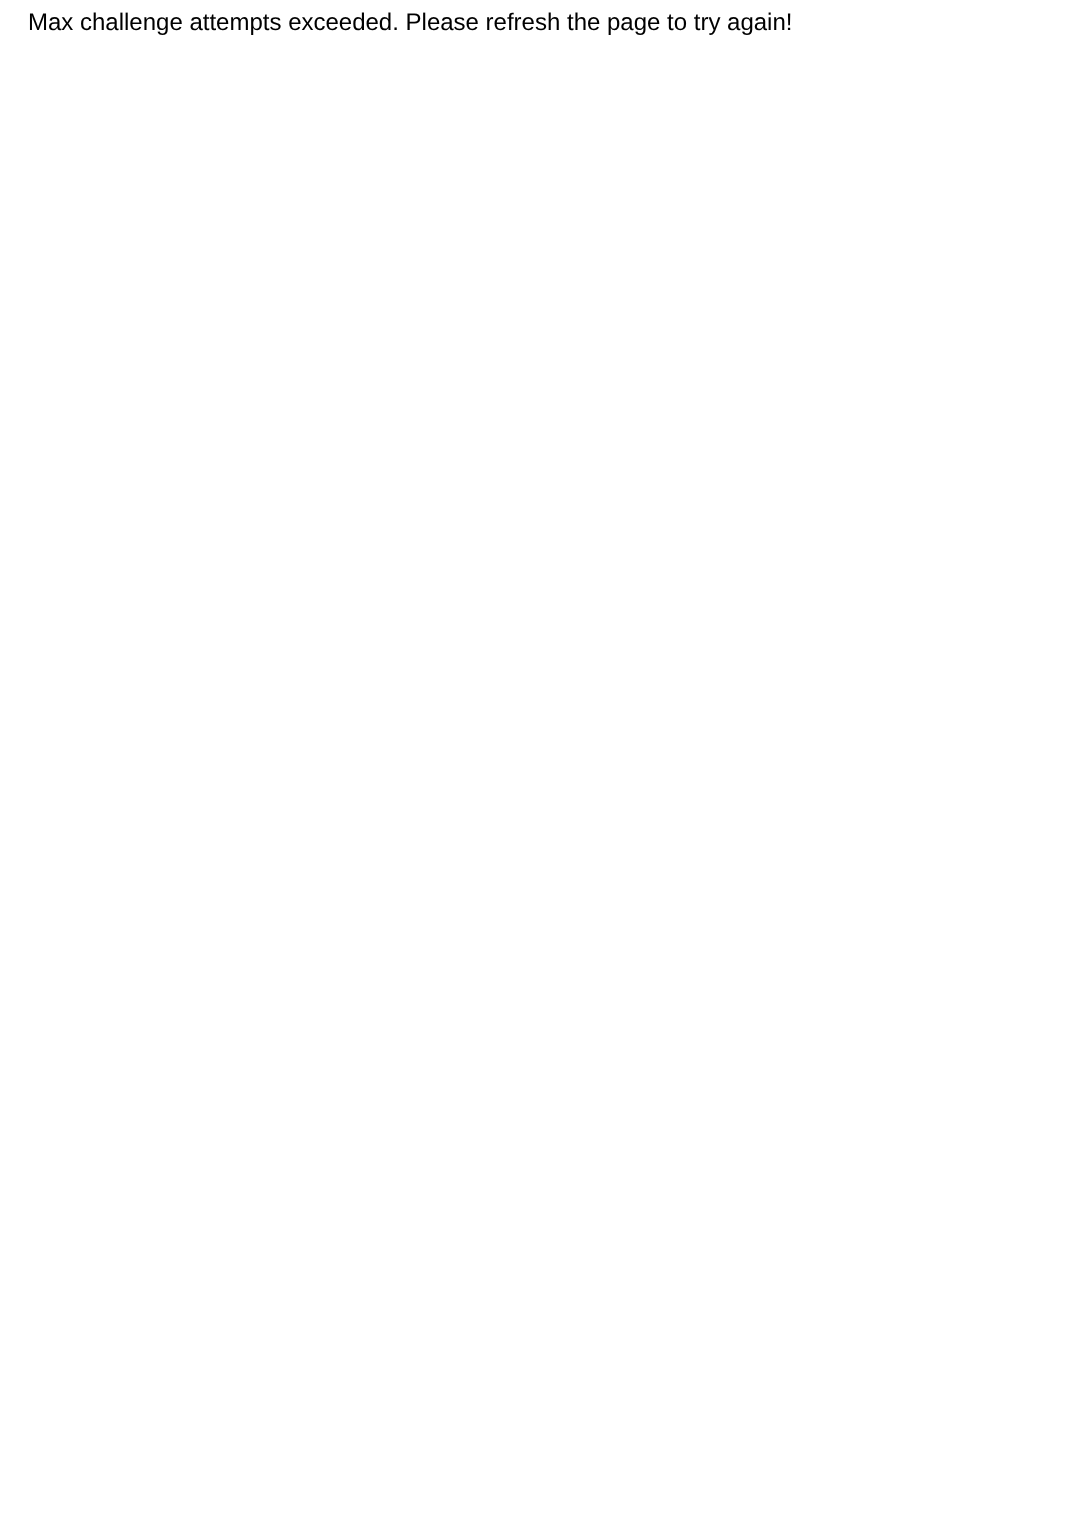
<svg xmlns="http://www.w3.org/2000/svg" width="1074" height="1516">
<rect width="100%" height="100%" fill="#fff"/>
<text x="28" y="30" style="font-family:Liberation Sans;font-size:24px;fill:#000">Max challenge attempts exceeded. Please refresh the page to try again!</text>
</svg>
